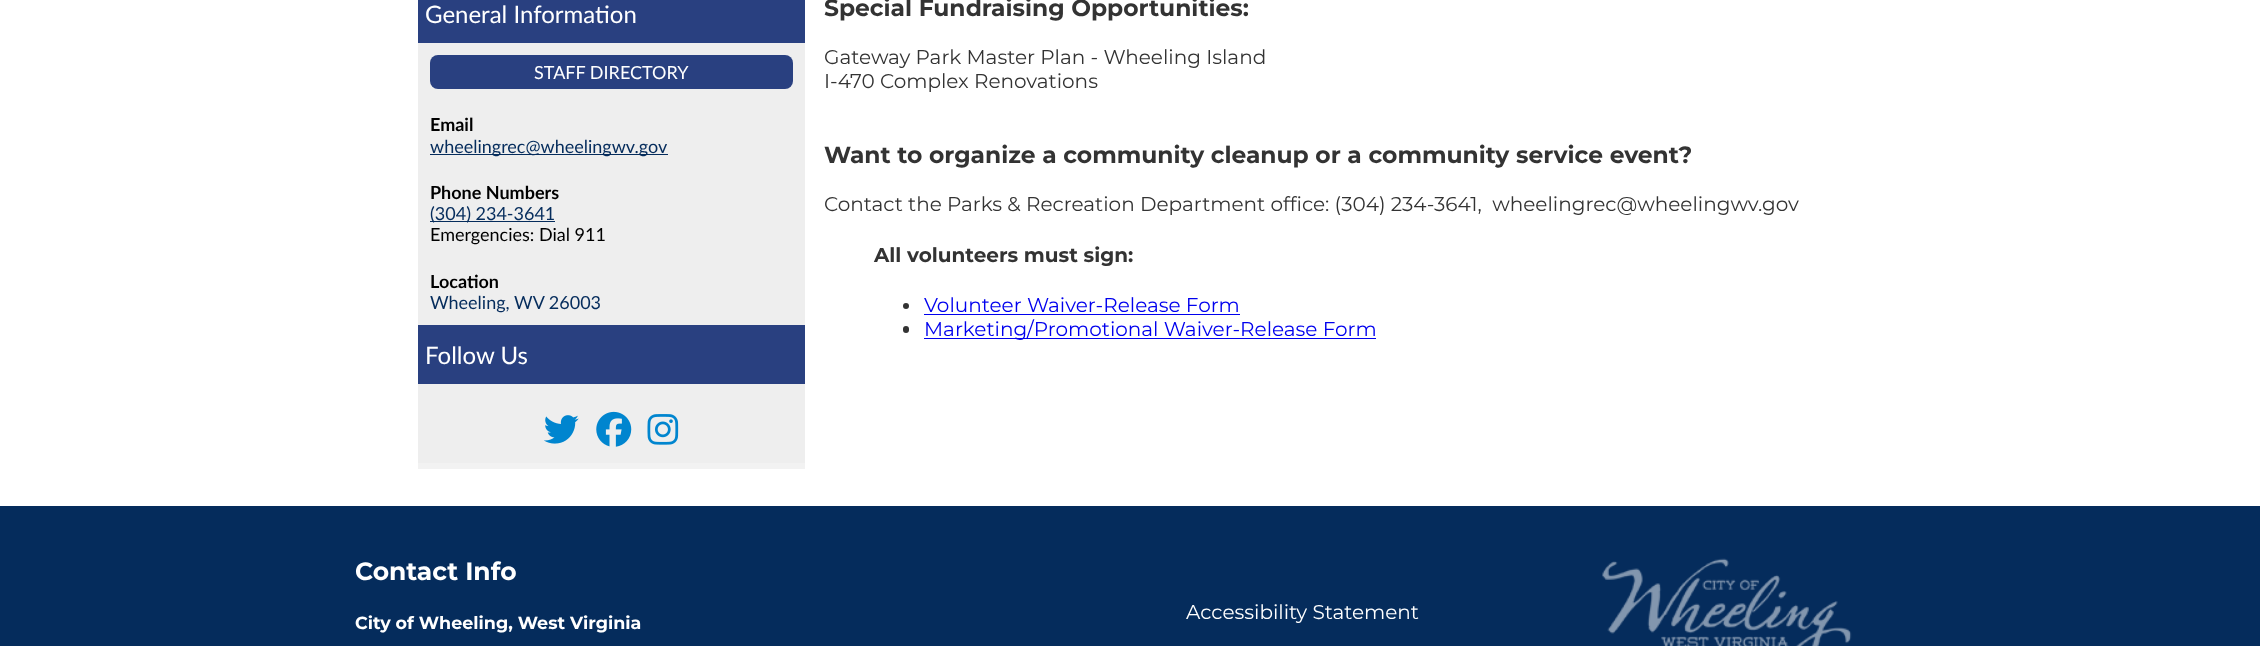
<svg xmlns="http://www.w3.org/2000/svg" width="2260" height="646">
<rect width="100%" height="100%" fill="#fff"/>
<rect x="418" y="463" width="387" height="6" fill="#f2f2f2"/>
<rect x="418" width="387" height="43" fill="#294080"/>
<text x="425" y="23" style="font-family:Lato;font-size:24px;fill:#fff">General Information</text>
<rect x="418" y="43" width="387" height="282" fill="#eee"/>
<rect x="430" y="55" width="363" height="34" rx="8" fill="#294080"/>
<text x="534" y="79" style="font-family:Lato;font-size:18px;fill:#fff">STAFF DIRECTORY</text>
<text x="430" y="131" style="font-family:Lato;font-size:18px;font-weight:bold;fill:#000">Email</text>
<rect x="430" y="154" width="238" height="1" fill="#052c5c"/>
<text x="430" y="153" style="font-family:Lato;font-size:18px;fill:#052c5c">wheelingrec@wheelingwv.gov</text>
<text x="430" y="199" style="font-family:Lato;font-size:18px;font-weight:bold;fill:#000">Phone Numbers</text>
<rect x="430" y="221" width="125" height="1" fill="#052c5c"/>
<text x="430" y="220" style="font-family:Lato;font-size:18px;fill:#052c5c">(304) 234-3641</text>
<text x="430" y="241" style="font-family:Lato;font-size:18px;fill:#000">Emergencies: Dial 911</text>
<text x="430" y="288" style="font-family:Lato;font-size:18px;font-weight:bold;fill:#000">Location</text>
<text x="430" y="309" style="font-family:Lato;font-size:18px;fill:#052c5c">Wheeling, WV 26003</text>
<rect x="418" y="325" width="387" height="59" fill="#294080"/>
<text x="425" y="364" style="font-family:Lato;font-size:24px;fill:#fff">Follow Us</text>
<rect x="418" y="384" width="387" height="79" fill="#eee"/>
<image x="544" y="415" width="35" height="29" href="media/1.png"/>
<image x="596" y="411" width="36" height="36" href="media/2.png"/>
<image x="647" y="414" width="32" height="31" href="media/3.png"/>
<text x="824" y="16" style="font-family:Montserrat;font-size:23.4px;font-weight:bold;fill:#333">Special Fundraising Opportunities:</text>
<text x="824" y="64" style="font-family:Montserrat;font-size:20px;fill:#333">Gateway Park Master Plan - Wheeling Island</text>
<text x="824" y="88" style="font-family:Montserrat;font-size:20px;fill:#333">I-470 Complex Renovations</text>
<text x="824" y="163" style="font-family:Montserrat;font-size:23.4px;font-weight:bold;fill:#333">Want to organize a community cleanup or a community service event?</text>
<text x="824" y="211" style="font-family:Montserrat;font-size:20px;fill:#333" xml:space="preserve">Contact the Parks &amp; Recreation Department office: (304) 234-3641,  wheelingrec@wheelingwv.gov</text>
<text x="874" y="262" style="font-family:Montserrat;font-size:20px;font-weight:bold;fill:#333">All volunteers must sign:</text>
<circle cx="906" cy="306" r="3" fill="#333"/>
<text x="924" y="312" style="font-family:Montserrat;font-size:20px;fill:#00e">Volunteer Waiver-Release Form</text>
<rect x="924" y="314" width="316" height="1" fill="#00e"/>
<rect x="903" y="326" width="6" height="7" rx="3" fill="#333"/>
<rect x="924" y="338" width="452" height="1" fill="#00e"/>
<text x="924" y="336" style="font-family:Montserrat;font-size:20px;fill:#00e">Marketing/Promotional Waiver-Release Form</text>
<rect y="506" width="2260" height="140" fill="#052c5c"/>
<text x="355" y="580" style="font-family:Montserrat;font-size:25px;font-weight:bold;fill:#fff">Contact Info</text>
<text x="355" y="629" style="font-family:Montserrat;font-size:17.5px;font-weight:bold;fill:#fff">City of Wheeling, West Virginia</text>
<text x="1186" y="619" style="font-family:Montserrat;font-size:20px;fill:#fff">Accessibility Statement</text>
<image x="1602" y="558" width="250" height="88" href="media/4.png"/>
</svg>
